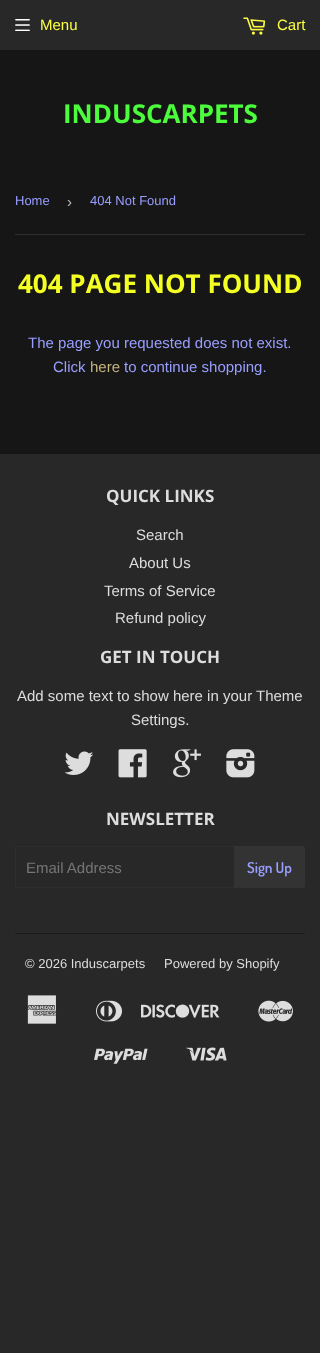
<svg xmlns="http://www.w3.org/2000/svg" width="320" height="1353">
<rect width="100%" height="100%" fill="#282828"/>
<rect y="50" width="320" height="404" fill="#161616"/>
<image x="15" y="19" width="15" height="12" href="media/1.png"/>
<text x="40" y="30" style="font-family:Liberation Sans;font-size:15px;fill:#fdff42">Menu</text>
<image x="243" y="17" width="23" height="18" href="media/2.png"/>
<text x="277" y="30" style="font-family:Liberation Sans;font-size:15px;fill:#fdff42">Cart</text>
<text x="63" y="123" style="font-family:Open Sans;font-size:26px;font-weight:bold;fill:#4bfd3b">INDUSCARPETS</text>
<rect x="15" y="234" width="290" height="1" fill="#2e2e2e"/>
<text x="15" y="205" style="font-family:Liberation Sans;font-size:13px;fill:#999fff">Home</text>
<text x="67" y="207" style="font-family:Liberation Sans;font-size:15px;fill:#bbb">›</text>
<text x="90" y="205" style="font-family:Liberation Sans;font-size:13px;fill:#999fff">404 Not Found</text>
<text x="18" y="293" style="font-family:Open Sans;font-size:26px;font-weight:bold;fill:#f4ff23">404 PAGE NOT FOUND</text>
<text x="28" y="348" style="font-family:Liberation Sans;font-size:15px;fill:#999fff">The page you requested does not exist.</text>
<text x="53" y="372" style="font-family:Liberation Sans;font-size:15px;fill:#999fff">Click</text>
<text x="90" y="372" style="font-family:Liberation Sans;font-size:15px;fill:#c4b47f">here</text>
<text x="124" y="372" style="font-family:Liberation Sans;font-size:15px;fill:#999fff">to continue shopping.</text>
<text x="106" y="502" style="font-family:Open Sans;font-size:17px;font-weight:bold;fill:#ddd">QUICK LINKS</text>
<text x="136" y="540" style="font-family:Liberation Sans;font-size:15px;fill:#ddd">Search</text>
<text x="129" y="568" style="font-family:Liberation Sans;font-size:15px;fill:#ddd">About Us</text>
<text x="104" y="596" style="font-family:Liberation Sans;font-size:15px;fill:#ddd">Terms of Service</text>
<text x="115" y="623" style="font-family:Liberation Sans;font-size:15px;fill:#ddd">Refund policy</text>
<text x="100" y="663" style="font-family:Open Sans;font-size:17px;font-weight:bold;fill:#ddd">GET IN TOUCH</text>
<text x="17" y="701" style="font-family:Liberation Sans;font-size:15px;fill:#ddd">Add some text to show here in your Theme</text>
<text x="131" y="725" style="font-family:Liberation Sans;font-size:15px;fill:#ddd">Settings.</text>
<image x="64" y="751" width="30" height="24" href="media/3.png"/>
<image x="118" y="749" width="29" height="29" href="media/4.png"/>
<image x="173" y="749" width="28" height="29" href="media/5.png"/>
<image x="226" y="749" width="29" height="29" href="media/6.png"/>
<text x="106" y="825" style="font-family:Open Sans;font-size:17px;font-weight:bold;fill:#ddd">NEWSLETTER</text>
<rect x="16" y="846" width="218" height="1" fill="#2e2e2e"/>
<rect x="16" y="887" width="218" height="1" fill="#2e2e2e"/>
<rect x="15" y="847" width="1" height="40" fill="#2e2e2e"/>
<text x="26" y="873" style="font-family:Liberation Sans;font-size:15px;fill:#757575">Email Address</text>
<path d="M234 846h69c1 0 2 1 2 2v38c0 1-1 2-2 2h-69z" fill="#333"/>
<text x="247" y="873" style="font-family:Dosis;font-size:15px;font-weight:600;fill:#999fff">Sign Up</text>
<rect x="15" y="933" width="290" height="1" fill="#1b1b1b"/>
<text x="25" y="968" style="font-family:Liberation Sans;font-size:13px;fill:#ddd">© 2026 Induscarpets</text>
<text x="164" y="968" style="font-family:Liberation Sans;font-size:13px;fill:#ddd">Powered by Shopify</text>
<image x="27" y="995" width="30" height="29" href="media/7.png"/>
<image x="96" y="1000" width="26" height="22" href="media/8.png"/>
<image x="141" y="1004" width="79" height="14" href="media/9.png"/>
<image x="258" y="1000" width="35" height="22" href="media/10.png"/>
<image x="94" y="1048" width="54" height="16" href="media/11.png"/>
<image x="186" y="1047" width="41" height="14" href="media/12.png"/>
</svg>
